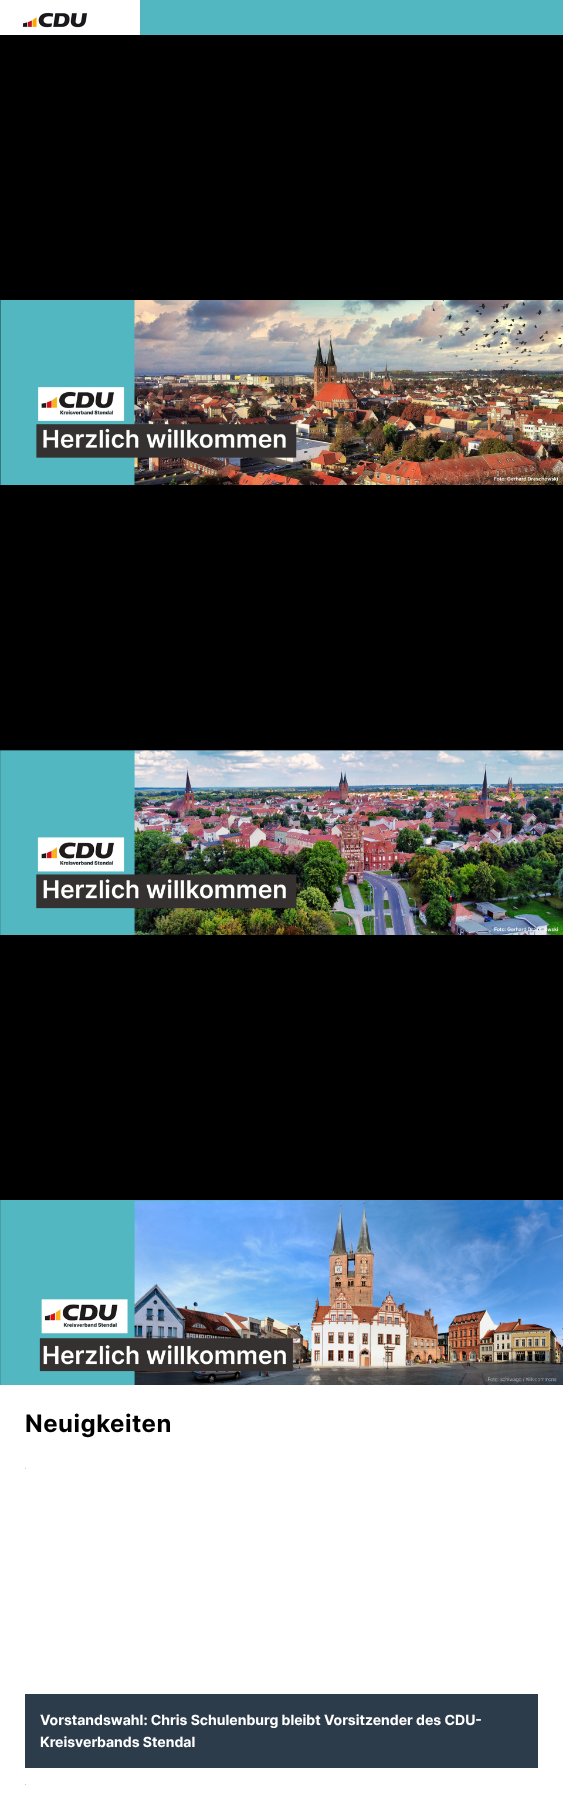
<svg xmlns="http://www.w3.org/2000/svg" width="563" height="1818">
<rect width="100%" height="100%" fill="#fff"/>
<image x="22" y="12" width="65" height="16" href="media/1.png"/>
<rect x="140" width="423" height="35" fill="#52b7c1"/>
<rect y="35" width="563" height="1165" fill="#000"/>
<image x="0" y="300" width="563" height="185" href="media/2.png"/>
<image x="0" y="750" width="563" height="185" href="media/3.png"/>
<image x="0" y="1200" width="563" height="185" href="media/4.png"/>
<text x="25" y="1432" style="font-family:Inter;font-size:24px;font-weight:bold;letter-spacing:0.5px;fill:#000">Neuigkeiten</text>
<rect x="25" y="1468" width="1" height="1" fill="#c3c3c3"/>
<rect x="25" y="1694" width="513" height="74" fill="#2d3c4b"/>
<text x="40" y="1725" style="font-family:Inter;font-size:14px;font-weight:bold;fill:#fff">Vorstandswahl: Chris Schulenburg bleibt Vorsitzender des CDU-</text>
<text x="40" y="1747" style="font-family:Inter;font-size:14px;font-weight:bold;fill:#fff">Kreisverbands Stendal</text>
<rect x="25" y="1784" width="1" height="1" fill="#c3c3c3"/>
</svg>
